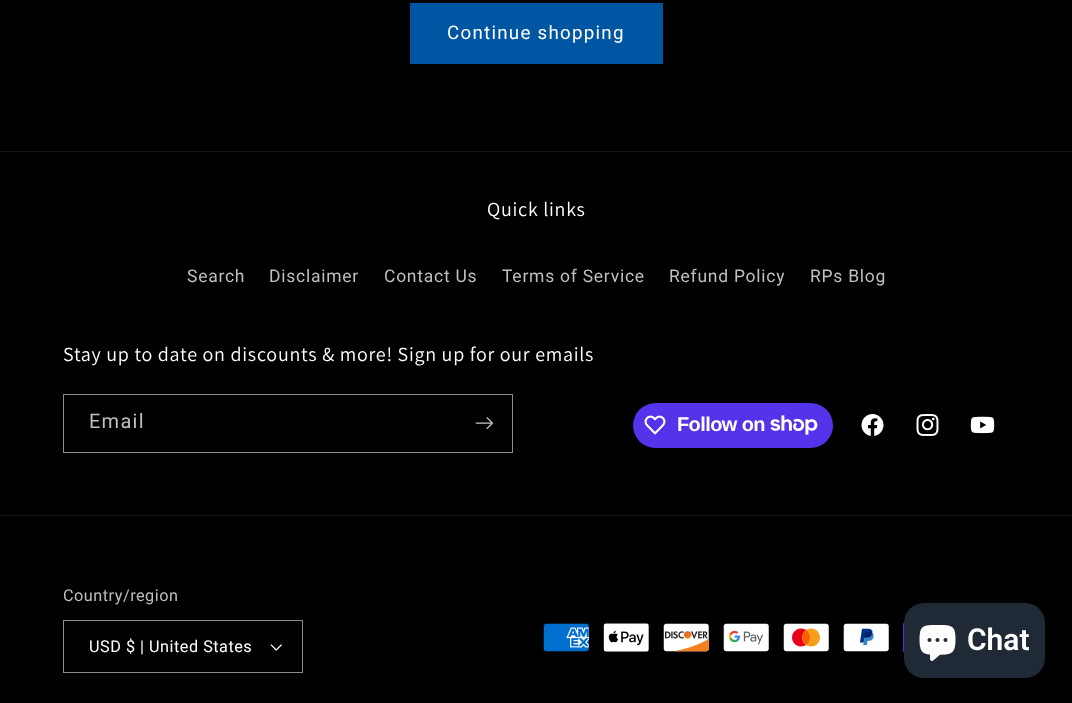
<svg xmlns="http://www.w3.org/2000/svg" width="1072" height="703">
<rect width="100%" height="100%" fill="#000"/>
<rect x="410" y="3" width="253" height="61" fill="#0056a3"/>
<text x="447" y="39" style="font-family:Roboto;font-size:18.75px;letter-spacing:1.25px;fill:#fff">Continue shopping</text>
<rect y="151" width="1072" height="1" fill="#141414"/>
<text x="487" y="216" style="font-family:Assistant;font-size:20px;letter-spacing:0.75px;fill:#fff">Quick links</text>
<text x="187" y="282" style="font-family:Roboto;font-size:17.5px;letter-spacing:0.75px;fill:#bfbfbf">Search</text>
<text x="269" y="282" style="font-family:Roboto;font-size:17.5px;letter-spacing:0.75px;fill:#bfbfbf">Disclaimer</text>
<text x="384" y="282" style="font-family:Roboto;font-size:17.5px;letter-spacing:0.75px;fill:#bfbfbf">Contact Us</text>
<text x="502" y="282" style="font-family:Roboto;font-size:17.5px;letter-spacing:0.75px;fill:#bfbfbf">Terms of Service</text>
<text x="669" y="282" style="font-family:Roboto;font-size:17.5px;letter-spacing:0.75px;fill:#bfbfbf">Refund Policy</text>
<text x="810" y="282" style="font-family:Roboto;font-size:17.5px;letter-spacing:0.75px;fill:#bfbfbf">RPs Blog</text>
<text x="63" y="361" style="font-family:Assistant;font-size:20px;letter-spacing:0.75px;fill:#fff">Stay up to date on discounts &amp; more! Sign up for our emails</text>
<rect x="63.5" y="394.5" width="449" height="58" fill="none" stroke="#8c8c8c"/>
<text x="89" y="428" style="font-family:Roboto;font-size:20px;letter-spacing:1.25px;fill:#bfbfbf">Email</text>
<image x="475" y="417" width="18" height="13" href="media/1.png"/>
<rect x="633" y="403" width="200" height="45" rx="22.5" fill="#5433eb"/>
<image x="644" y="415" width="22" height="20" href="media/2.png"/>
<text x="677" y="431" style="font-family:Liberation Sans;font-size:20px;font-weight:bold;letter-spacing:-0.6px;fill:#fff">Follow on</text>
<image x="770" y="415" width="48" height="20" href="media/3.png"/>
<image x="861" y="414" width="23" height="22" href="media/4.png"/>
<image x="916" y="414" width="23" height="22" href="media/5.png"/>
<image x="970" y="416" width="25" height="18" href="media/6.png"/>
<rect y="515" width="1072" height="1" fill="#141414"/>
<text x="63" y="601" style="font-family:Roboto;font-size:16.25px;letter-spacing:0.5px;fill:#bfbfbf">Country/region</text>
<image x="270" y="644" width="12" height="7" href="media/7.png"/>
<rect x="63.5" y="620.5" width="239" height="52" fill="none" stroke="#8c8c8c"/>
<text x="89" y="652" style="font-family:Roboto;font-size:16.25px;letter-spacing:0.5px;fill:#fff">USD $ | United States</text>
<image x="543" y="623" width="46" height="29" href="media/8.png"/>
<image x="603" y="623" width="46" height="29" href="media/9.png"/>
<image x="663" y="623" width="46" height="29" href="media/10.png"/>
<image x="723" y="623" width="46" height="29" href="media/11.png"/>
<image x="783" y="623" width="46" height="29" href="media/12.png"/>
<image x="843" y="623" width="46" height="29" href="media/13.png"/>
<image x="903" y="623" width="1" height="30" href="media/14.png"/>
<rect x="904" y="603" width="141" height="75" rx="20" fill="#00000026" filter="blur(3px)"/>
<rect x="904" y="603" width="141" height="75" rx="20" fill="#202a36"/>
<image x="919" y="625" width="37" height="36" href="media/15.png"/>
<text x="967" y="650" style="font-family:Roboto;font-size:30px;font-weight:600;fill:#fff">Chat</text>
</svg>
